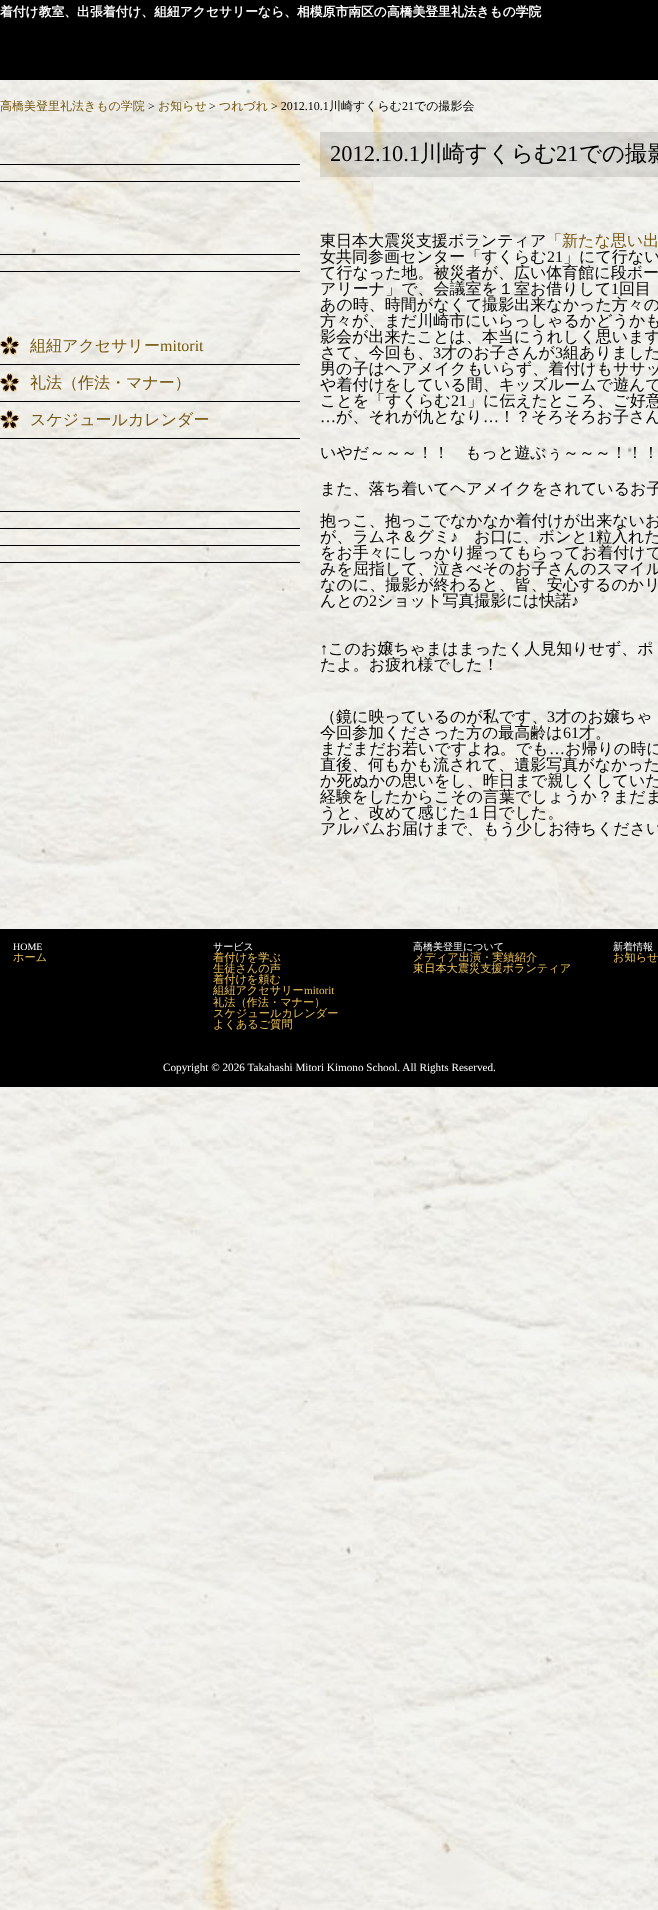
<svg xmlns="http://www.w3.org/2000/svg" width="658" height="1910">
<rect width="100%" height="100%" fill="#fff"/>
<image x="0" y="80" width="658" height="1830" href="media/1.png"/>
<rect width="658" height="80" fill="#000"/>
<text x="0" y="16" style="font-family:WenQuanYi Zen Hei;font-size:12.8px;font-weight:bold;fill:#fff">着付け教室、出張着付け、組紐アクセサリーなら、相模原市南区の高橋美登里礼法きもの学院</text>
<text x="0" y="110" style="font-family:WenQuanYi Zen Hei;font-size:12px;font-weight:500;fill:#755812">高橋美登里礼法きもの学院</text>
<text x="148" y="110" style="font-family:Liberation Serif;font-size:12px;fill:#000">&gt;</text>
<text x="158" y="110" style="font-family:WenQuanYi Zen Hei;font-size:12px;font-weight:500;fill:#755812">お知らせ</text>
<text x="209" y="110" style="font-family:Liberation Serif;font-size:12px;fill:#000">&gt;</text>
<text x="219" y="110" style="font-family:WenQuanYi Zen Hei;font-size:12px;font-weight:500;fill:#755812">つれづれ</text>
<text x="271" y="110" style="font-family:Liberation Serif;font-size:12px;fill:#000">&gt; 2012.10.1</text>
<text x="329" y="110" style="font-family:WenQuanYi Zen Hei;font-size:12px;font-weight:500;fill:#000">川崎すくらむ</text>
<text x="402" y="110" style="font-family:Liberation Serif;font-size:12px;fill:#000">21</text>
<text x="414" y="110" style="font-family:WenQuanYi Zen Hei;font-size:12px;font-weight:500;fill:#000">での撮影会</text>
<rect y="164" width="300" height="1" fill="#000"/>
<rect y="181" width="300" height="1" fill="#000"/>
<rect y="254" width="300" height="1" fill="#000"/>
<rect y="271" width="300" height="1" fill="#000"/>
<image x="0" y="336" width="20" height="19" href="media/2.png"/>
<rect y="364" width="300" height="1" fill="#000"/>
<text x="30" y="351" style="font-family:WenQuanYi Zen Hei;font-size:16px;font-weight:500;fill:#755812">組紐アクセサリー</text>
<text x="160" y="351" style="font-family:Liberation Serif;font-size:16px;fill:#755812">mitorit</text>
<image x="0" y="373" width="20" height="19" href="media/3.png"/>
<rect y="401" width="300" height="1" fill="#000"/>
<text x="30" y="388" style="font-family:WenQuanYi Zen Hei;font-size:16px;font-weight:500;fill:#755812">礼法（作法・マナー）</text>
<image x="0" y="410" width="20" height="19" href="media/4.png"/>
<rect y="438" width="300" height="1" fill="#000"/>
<text x="30" y="425" style="font-family:WenQuanYi Zen Hei;font-size:16px;font-weight:500;fill:#755812">スケジュールカレンダー</text>
<rect y="511" width="300" height="1" fill="#000"/>
<rect y="528" width="300" height="1" fill="#000"/>
<rect y="545" width="300" height="1" fill="#000"/>
<rect y="562" width="300" height="1" fill="#000"/>
<rect x="320" y="132" width="338" height="45" fill="#0000001a"/>
<text x="330" y="161" style="font-family:Liberation Serif;font-size:22.5px;fill:#000">2012.10.1</text>
<text x="420" y="161" style="font-family:WenQuanYi Zen Hei;font-size:22.5px;font-weight:500;fill:#000">川崎すくらむ</text>
<text x="556" y="161" style="font-family:Liberation Serif;font-size:22.5px;fill:#000">21</text>
<text x="579" y="161" style="font-family:WenQuanYi Zen Hei;font-size:22.5px;font-weight:500;fill:#000">での撮影</text>
<text x="320" y="246" style="font-family:WenQuanYi Zen Hei;font-size:16px;font-weight:500;fill:#000">東日本大震災支援ボランティア</text>
<text x="546" y="246" style="font-family:WenQuanYi Zen Hei;font-size:16px;font-weight:500;fill:#755812">「新たな思い出</text>
<text x="320" y="262" style="font-family:WenQuanYi Zen Hei;font-size:16px;font-weight:500;fill:#000">女共同参画センター「すくらむ</text>
<text x="547" y="262" style="font-family:Liberation Serif;font-size:16px;fill:#000">21</text>
<text x="563" y="262" style="font-family:WenQuanYi Zen Hei;font-size:16px;font-weight:500;fill:#000">」にて行ない</text>
<text x="320" y="278" style="font-family:WenQuanYi Zen Hei;font-size:16px;font-weight:500;fill:#000">て行なった地。被災者が、広い体育館に段ボー</text>
<text x="320" y="294" style="font-family:WenQuanYi Zen Hei;font-size:16px;font-weight:500;fill:#000">アリーナ」で、会議室を１室お借りして</text>
<text x="611" y="294" style="font-family:Liberation Serif;font-size:16px;fill:#000">1</text>
<text x="619" y="294" style="font-family:WenQuanYi Zen Hei;font-size:16px;font-weight:500;fill:#000">回目</text>
<text x="320" y="310" style="font-family:WenQuanYi Zen Hei;font-size:16px;font-weight:500;fill:#000">あの時、時間がなくて撮影出来なかった方々の</text>
<text x="320" y="326" style="font-family:WenQuanYi Zen Hei;font-size:16px;font-weight:500;fill:#000">方々が、まだ川崎市にいらっしゃるかどうかも</text>
<text x="320" y="342" style="font-family:WenQuanYi Zen Hei;font-size:16px;font-weight:500;fill:#000">影会が出来たことは、本当にうれしく思います</text>
<text x="320" y="358" style="font-family:WenQuanYi Zen Hei;font-size:16px;font-weight:500;fill:#000">さて、今回も、</text>
<text x="433" y="358" style="font-family:Liberation Serif;font-size:16px;fill:#000">3</text>
<text x="441" y="358" style="font-family:WenQuanYi Zen Hei;font-size:16px;font-weight:500;fill:#000">才のお子さんが</text>
<text x="555" y="358" style="font-family:Liberation Serif;font-size:16px;fill:#000">3</text>
<text x="563" y="358" style="font-family:WenQuanYi Zen Hei;font-size:16px;font-weight:500;fill:#000">組ありました</text>
<text x="320" y="374" style="font-family:WenQuanYi Zen Hei;font-size:16px;font-weight:500;fill:#000">男の子はヘアメイクもいらず、着付けもササッ</text>
<text x="320" y="390" style="font-family:WenQuanYi Zen Hei;font-size:16px;font-weight:500;fill:#000">や着付けをしている間、キッズルームで遊んで</text>
<text x="320" y="406" style="font-family:WenQuanYi Zen Hei;font-size:16px;font-weight:500;fill:#000">ことを「すくらむ</text>
<text x="451" y="406" style="font-family:Liberation Serif;font-size:16px;fill:#000">21</text>
<text x="467" y="406" style="font-family:WenQuanYi Zen Hei;font-size:16px;font-weight:500;fill:#000">」に伝えたところ、ご好意</text>
<text x="320" y="422" style="font-family:Liberation Serif;font-size:16px;fill:#000">…</text>
<text x="336" y="422" style="font-family:WenQuanYi Zen Hei;font-size:16px;font-weight:500;fill:#000">が、それが仇となり</text>
<text x="483" y="422" style="font-family:Liberation Serif;font-size:16px;fill:#000">…</text>
<text x="499" y="422" style="font-family:WenQuanYi Zen Hei;font-size:16px;font-weight:500;fill:#000">！？そろそろお子さん</text>
<text x="320" y="458" style="font-family:WenQuanYi Zen Hei;font-size:16px;font-weight:500;fill:#000">いやだ～～～！！　もっと遊ぶぅ～～～！！！</text>
<text x="320" y="494" style="font-family:WenQuanYi Zen Hei;font-size:16px;font-weight:500;fill:#000">また、落ち着いてヘアメイクをされているお子</text>
<text x="320" y="526" style="font-family:WenQuanYi Zen Hei;font-size:16px;font-weight:500;fill:#000">抱っこ、抱っこでなかなか着付けが出来ないお</text>
<text x="320" y="542" style="font-family:WenQuanYi Zen Hei;font-size:16px;font-weight:500;fill:#000">が、ラムネ＆グミ</text>
<text x="450" y="542" style="font-family:Liberation Serif;font-size:16px;fill:#000">♪</text>
<text x="474" y="542" style="font-family:WenQuanYi Zen Hei;font-size:16px;font-weight:500;fill:#000">お口に、ボンと</text>
<text x="588" y="542" style="font-family:Liberation Serif;font-size:16px;fill:#000">1</text>
<text x="596" y="542" style="font-family:WenQuanYi Zen Hei;font-size:16px;font-weight:500;fill:#000">粒入れた</text>
<text x="320" y="558" style="font-family:WenQuanYi Zen Hei;font-size:16px;font-weight:500;fill:#000">をお手々にしっかり握ってもらってお着付けで</text>
<text x="320" y="574" style="font-family:WenQuanYi Zen Hei;font-size:16px;font-weight:500;fill:#000">みを屈指して、泣きべそのお子さんのスマイル</text>
<text x="320" y="590" style="font-family:WenQuanYi Zen Hei;font-size:16px;font-weight:500;fill:#000">なのに、撮影が終わると、皆、安心するのかリ</text>
<text x="320" y="606" style="font-family:WenQuanYi Zen Hei;font-size:16px;font-weight:500;fill:#000">んとの</text>
<text x="369" y="606" style="font-family:Liberation Serif;font-size:16px;fill:#000">2</text>
<text x="377" y="606" style="font-family:WenQuanYi Zen Hei;font-size:16px;font-weight:500;fill:#000">ショット写真撮影には快諾</text>
<text x="571" y="606" style="font-family:Liberation Serif;font-size:16px;fill:#000">♪</text>
<text x="320" y="654" style="font-family:Liberation Serif;font-size:16px;fill:#000">↑</text>
<text x="328" y="654" style="font-family:WenQuanYi Zen Hei;font-size:16px;font-weight:500;fill:#000">このお嬢ちゃまはまったく人見知りせず、ポ</text>
<text x="320" y="670" style="font-family:WenQuanYi Zen Hei;font-size:16px;font-weight:500;fill:#000">たよ。お疲れ様でした！</text>
<text x="320" y="722" style="font-family:WenQuanYi Zen Hei;font-size:16px;font-weight:500;fill:#000">（鏡に映っているのが私です、</text>
<text x="547" y="722" style="font-family:Liberation Serif;font-size:16px;fill:#000">3</text>
<text x="555" y="722" style="font-family:WenQuanYi Zen Hei;font-size:16px;font-weight:500;fill:#000">才のお嬢ちゃ</text>
<text x="320" y="738" style="font-family:WenQuanYi Zen Hei;font-size:16px;font-weight:500;fill:#000">今回参加くださった方の最高齢は</text>
<text x="563" y="738" style="font-family:Liberation Serif;font-size:16px;fill:#000">61</text>
<text x="579" y="738" style="font-family:WenQuanYi Zen Hei;font-size:16px;font-weight:500;fill:#000">才。</text>
<text x="320" y="754" style="font-family:WenQuanYi Zen Hei;font-size:16px;font-weight:500;fill:#000">まだまだお若いですよね。でも</text>
<text x="549" y="754" style="font-family:Liberation Serif;font-size:16px;fill:#000">…</text>
<text x="565" y="754" style="font-family:WenQuanYi Zen Hei;font-size:16px;font-weight:500;fill:#000">お帰りの時に</text>
<text x="320" y="770" style="font-family:WenQuanYi Zen Hei;font-size:16px;font-weight:500;fill:#000">直後、何もかも流されて、遺影写真がなかった</text>
<text x="320" y="786" style="font-family:WenQuanYi Zen Hei;font-size:16px;font-weight:500;fill:#000">か死ぬかの思いをし、昨日まで親しくしていた</text>
<text x="320" y="802" style="font-family:WenQuanYi Zen Hei;font-size:16px;font-weight:500;fill:#000">経験をしたからこその言葉でしょうか？まだま</text>
<text x="320" y="818" style="font-family:WenQuanYi Zen Hei;font-size:16px;font-weight:500;fill:#000">うと、改めて感じた１日でした。</text>
<text x="320" y="834" style="font-family:WenQuanYi Zen Hei;font-size:16px;font-weight:500;fill:#000">アルバムお届けまで、もう少しお待ちください</text>
<rect y="929" width="658" height="158" fill="#000"/>
<text x="13" y="950" style="font-family:Liberation Serif;font-size:10px;fill:#fff">HOME</text>
<text x="13" y="961" style="font-family:WenQuanYi Zen Hei;font-size:11.2px;font-weight:500;fill:#ecc15a">ホーム</text>
<text x="213" y="950" style="font-family:WenQuanYi Zen Hei;font-size:10px;font-weight:500;fill:#fff">サービス</text>
<text x="213" y="961" style="font-family:WenQuanYi Zen Hei;font-size:11.2px;font-weight:500;fill:#ecc15a">着付けを学ぶ</text>
<text x="213" y="972" style="font-family:WenQuanYi Zen Hei;font-size:11.2px;font-weight:500;fill:#ecc15a">生徒さんの声</text>
<text x="213" y="983" style="font-family:WenQuanYi Zen Hei;font-size:11.2px;font-weight:500;fill:#ecc15a">着付けを頼む</text>
<text x="213" y="994" style="font-family:WenQuanYi Zen Hei;font-size:11.2px;font-weight:500;fill:#ecc15a">組紐アクセサリー</text>
<text x="304" y="994" style="font-family:Liberation Serif;font-size:11.2px;fill:#ecc15a">mitorit</text>
<text x="213" y="1006" style="font-family:WenQuanYi Zen Hei;font-size:11.2px;font-weight:500;fill:#ecc15a">礼法（作法・マナー）</text>
<text x="213" y="1017" style="font-family:WenQuanYi Zen Hei;font-size:11.2px;font-weight:500;fill:#ecc15a">スケジュールカレンダー</text>
<text x="213" y="1028" style="font-family:WenQuanYi Zen Hei;font-size:11.2px;font-weight:500;fill:#ecc15a">よくあるご質問</text>
<text x="413" y="950" style="font-family:WenQuanYi Zen Hei;font-size:10px;font-weight:500;fill:#fff">高橋美登里について</text>
<text x="413" y="961" style="font-family:WenQuanYi Zen Hei;font-size:11.2px;font-weight:500;fill:#ecc15a">メディア出演・実績紹介</text>
<text x="413" y="972" style="font-family:WenQuanYi Zen Hei;font-size:11.2px;font-weight:500;fill:#ecc15a">東日本大震災支援ボランティア</text>
<text x="613" y="950" style="font-family:WenQuanYi Zen Hei;font-size:10px;font-weight:500;fill:#fff">新着情報</text>
<text x="613" y="961" style="font-family:WenQuanYi Zen Hei;font-size:11.2px;font-weight:500;fill:#ecc15a">お知らせ</text>
<text x="163" y="1071" style="font-family:Liberation Serif;font-size:11.2px;fill:#fff">Copyright © 2026 Takahashi Mitori Kimono School. All Rights Reserved.</text>
</svg>
